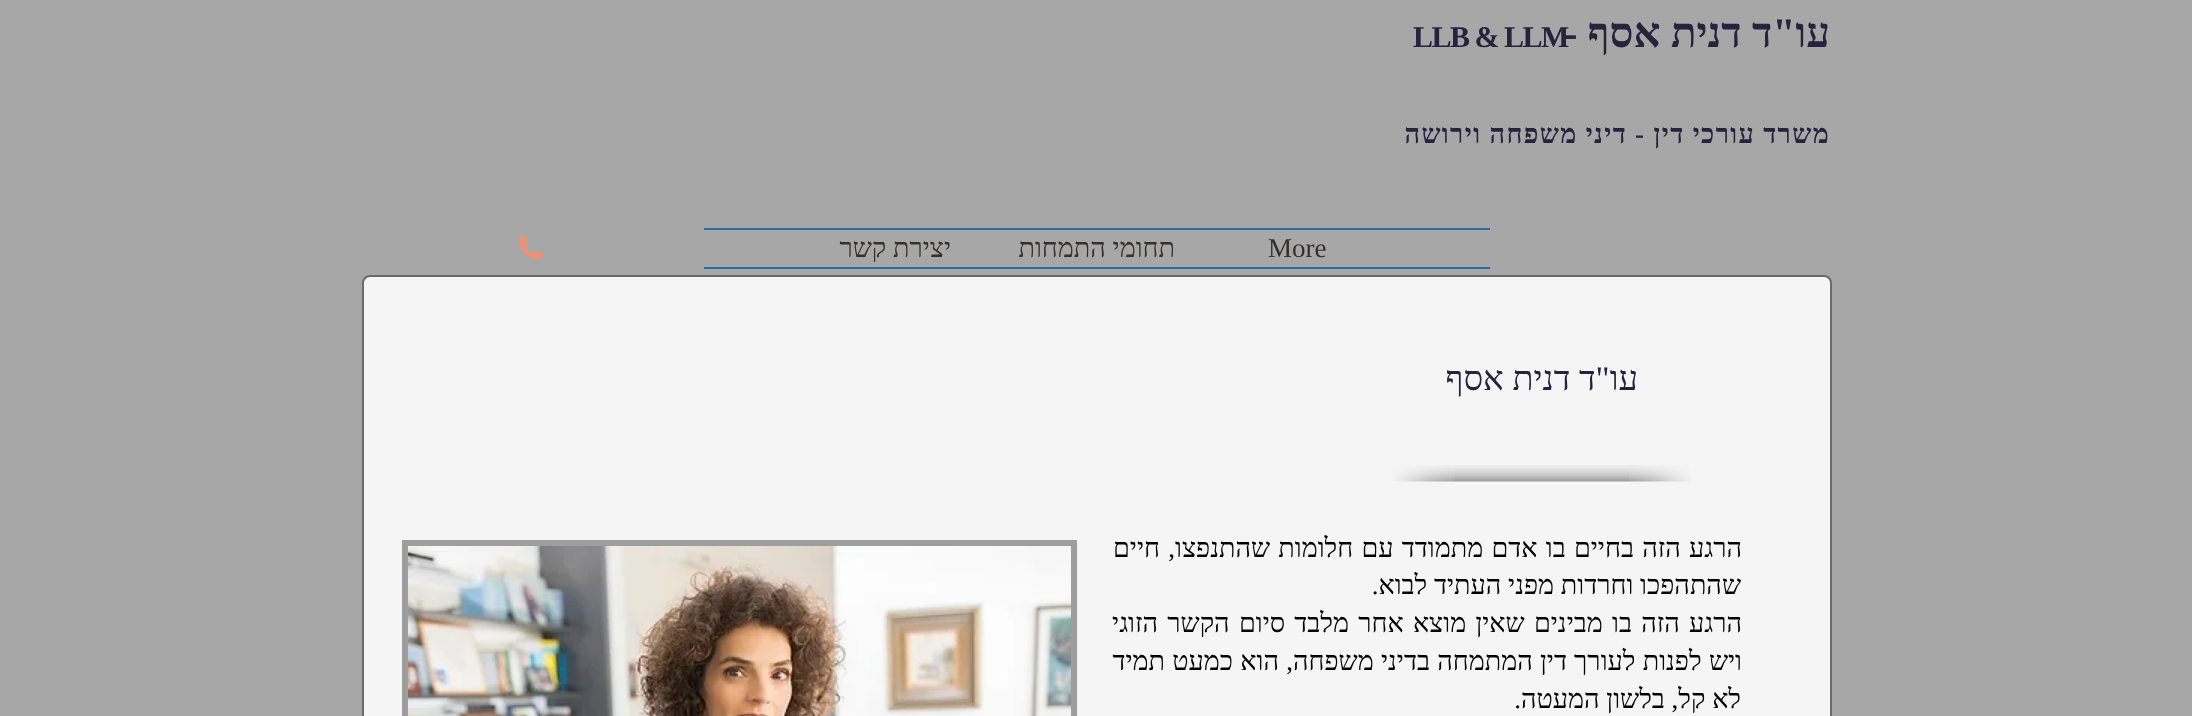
<svg xmlns="http://www.w3.org/2000/svg" width="2192" height="716">
<rect width="100%" height="100%" fill="#a7a7a7"/>
<text x="1830" y="47" style="font-family:Liberation Serif;font-size:42px;font-weight:bold;direction:rtl;fill:#27223e">עו"ד דנית אסף -</text>
<text x="1413" y="47" style="font-family:Liberation Serif;font-size:30px;font-weight:bold;letter-spacing:-1.5px;fill:#27223e">LLB &amp; LLM</text>
<text x="1830" y="143" style="font-family:Liberation Serif;font-size:27px;font-weight:bold;letter-spacing:1.35px;direction:rtl;fill:#27223e">משרד עורכי דין - דיני משפחה וירושה</text>
<rect x="704" y="228" width="786" height="2" fill="#2b6ca3"/>
<rect x="704" y="267" width="786" height="2" fill="#2b6ca3"/>
<text x="1268" y="257" style="font-family:Liberation Serif;font-size:27px;fill:#34302a">More</text>
<text x="1175" y="257" style="font-family:Liberation Serif;font-size:27px;direction:rtl;fill:#34302a">תחומי התמחות</text>
<text x="951" y="257" style="font-family:Liberation Serif;font-size:27px;direction:rtl;fill:#34302a">יצירת קשר</text>
<image x="519" y="235" width="24" height="25" href="media/1.png"/>
<rect x="363" y="276" width="1468" height="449" rx="7" fill="#f5f5f5" stroke="#6b6b6b" stroke-width="2"/>
<text x="1638" y="390" style="font-family:Liberation Serif;font-size:34.5px;direction:rtl;fill:#27223e">עו"ד דנית אסף</text>
<image x="1455" y="465" width="174" height="20" href="media/2.png"/>
<image x="1629" y="465" width="62" height="17" href="media/3.png"/>
<image x="1393" y="465" width="62" height="17" href="media/4.png"/>
<text x="1742" y="557" word-spacing="1.5" style="font-family:Liberation Serif;font-size:27px;direction:rtl;fill:#000">הרגע הזה בחיים בו אדם מתמודד עם חלומות שהתנפצו, חיים</text>
<text x="1741" y="594" style="font-family:Liberation Serif;font-size:27px;direction:rtl;fill:#000">שהתהפכו וחרדות מפני העתיד לבוא.</text>
<text x="1742" y="632" word-spacing="2.5" style="font-family:Liberation Serif;font-size:27px;direction:rtl;fill:#000">הרגע הזה בו מבינים שאין מוצא אחר מלבד סיום הקשר הזוגי</text>
<text x="1742" y="670" word-spacing="0.5" style="font-family:Liberation Serif;font-size:27px;direction:rtl;fill:#000">ויש לפנות לעורך דין המתמחה בדיני משפחה, הוא כמעט תמיד</text>
<text x="1741" y="708" style="font-family:Liberation Serif;font-size:27px;direction:rtl;fill:#000">לא קל, בלשון המעטה.</text>
<rect x="402" y="540" width="675" height="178" rx="1.5" fill="#b2b2b2"/>
<path d="M405 543h669v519h-669z" fill="none" stroke="#969696b3" stroke-width="6"/>
<image x="408" y="546" width="663" height="170" href="media/5.png"/>
</svg>
